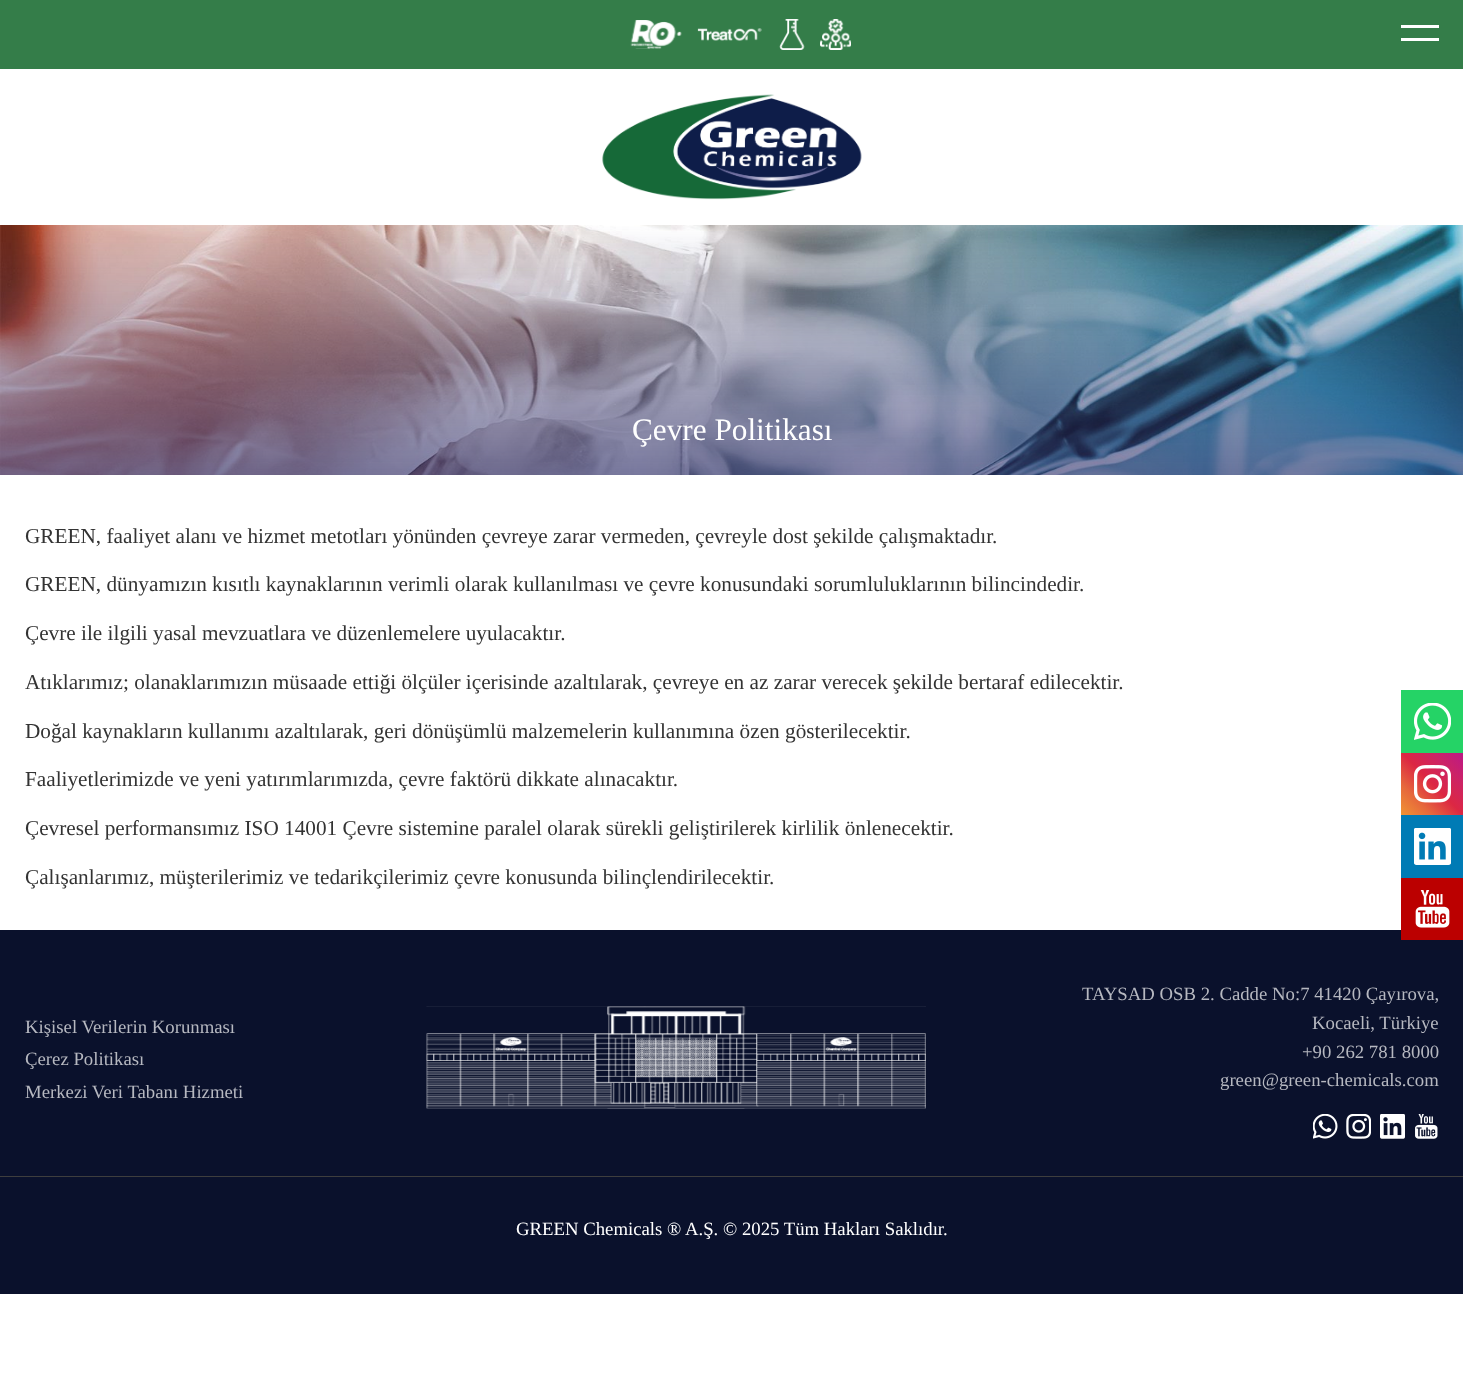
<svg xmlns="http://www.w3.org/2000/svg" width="1463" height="1378">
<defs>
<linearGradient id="g1" gradientUnits="userSpaceOnUse" x1="1401" y1="815" x2="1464" y2="753"><stop offset="0" stop-color="#f09433"/><stop offset="0.25" stop-color="#e6683c"/><stop offset="0.5" stop-color="#dc2743"/><stop offset="0.75" stop-color="#cc2366"/><stop offset="1" stop-color="#bc1888"/></linearGradient>
</defs>
<rect width="100%" height="100%" fill="#fff"/>
<rect width="1463" height="69" fill="#347d49"/>
<image x="630" y="20" width="52" height="29" href="media/1.png"/>
<image x="697" y="28" width="65" height="13" href="media/2.png"/>
<image x="779" y="19" width="26" height="31" href="media/3.png"/>
<image x="820" y="19" width="31" height="31" href="media/4.png"/>
<image x="602" y="94" width="260" height="106" href="media/5.png"/>
<rect x="1401" y="25" width="38" height="3" fill="#fff"/>
<rect x="1401" y="38" width="38" height="3" fill="#fff"/>
<image x="0" y="225" width="1463" height="250" href="media/6.png"/>
<text x="632" y="440" style="font-family:Liberation Serif;font-size:31.25px;fill:#fff">Çevre Politikası</text>
<text x="25" y="543" style="font-family:Liberation Serif;font-size:21.25px;fill:#333">GREEN, faaliyet alanı ve hizmet metotları yönünden çevreye zarar vermeden, çevreyle dost şekilde çalışmaktadır.</text>
<text x="25" y="591" style="font-family:Liberation Serif;font-size:21.25px;fill:#333">GREEN, dünyamızın kısıtlı kaynaklarının verimli olarak kullanılması ve çevre konusundaki sorumluluklarının bilincindedir.</text>
<text x="25" y="640" style="font-family:Liberation Serif;font-size:21.25px;fill:#333">Çevre ile ilgili yasal mevzuatlara ve düzenlemelere uyulacaktır.</text>
<text x="25" y="689" style="font-family:Liberation Serif;font-size:21.25px;fill:#333">Atıklarımız; olanaklarımızın müsaade ettiği ölçüler içerisinde azaltılarak, çevreye en az zarar verecek şekilde bertaraf edilecektir.</text>
<text x="25" y="738" style="font-family:Liberation Serif;font-size:21.25px;fill:#333">Doğal kaynakların kullanımı azaltılarak, geri dönüşümlü malzemelerin kullanımına özen gösterilecektir.</text>
<text x="25" y="786" style="font-family:Liberation Serif;font-size:21.25px;fill:#333">Faaliyetlerimizde ve yeni yatırımlarımızda, çevre faktörü dikkate alınacaktır.</text>
<text x="25" y="835" style="font-family:Liberation Serif;font-size:21.25px;fill:#333">Çevresel performansımız ISO 14001 Çevre sistemine paralel olarak sürekli geliştirilerek kirlilik önlenecektir.</text>
<text x="25" y="884" style="font-family:Liberation Serif;font-size:21.25px;fill:#333">Çalışanlarımız, müşterilerimiz ve tedarikçilerimiz çevre konusunda bilinçlendirilecektir.</text>
<rect y="930" width="1463" height="364" fill="#0a112c"/>
<text x="25" y="1033" style="font-family:Liberation Serif;font-size:18.75px;fill:#b6b8c0">Kişisel Verilerin Korunması</text>
<text x="25" y="1065" style="font-family:Liberation Serif;font-size:18.75px;fill:#b6b8c0">Çerez Politikası</text>
<text x="25" y="1098" style="font-family:Liberation Serif;font-size:18.75px;fill:#b6b8c0">Merkezi Veri Tabanı Hizmeti</text>
<image x="426" y="1006" width="500" height="103" href="media/7.png"/>
<text x="1082" y="1000" style="font-family:Liberation Serif;font-size:18.75px;fill:#b6b8c0">TAYSAD OSB 2. Cadde No:7 41420 Çayırova,</text>
<text x="1312" y="1029" style="font-family:Liberation Serif;font-size:18.75px;fill:#b6b8c0">Kocaeli, Türkiye</text>
<text x="1302" y="1058" style="font-family:Liberation Serif;font-size:18.75px;fill:#b6b8c0">+90 262 781 8000</text>
<text x="1220" y="1086" style="font-family:Liberation Serif;font-size:18.75px;fill:#b6b8c0">green@green-chemicals.com</text>
<image x="1313" y="1114" width="25" height="25" href="media/8.png"/>
<image x="1346" y="1114" width="25" height="25" href="media/9.png"/>
<image x="1380" y="1114" width="25" height="25" href="media/10.png"/>
<image x="1415" y="1114" width="23" height="25" href="media/11.png"/>
<rect y="1176" width="1463" height="1" fill="#3e3e3e"/>
<text x="516" y="1235" style="font-family:Liberation Serif;font-size:18.75px;fill:#fff">GREEN Chemicals ® A.Ş. © 2025 Tüm Hakları Saklıdır.</text>
<rect x="1401" y="690" width="62" height="63" fill="#25d366"/>
<image x="1414" y="703" width="37" height="37" href="media/12.png"/>
<rect x="1401" y="753" width="62" height="62" fill="url(#g1)"/>
<image x="1414" y="765" width="37" height="38" href="media/13.png"/>
<rect x="1401" y="815" width="62" height="63" fill="#007bb5"/>
<image x="1414" y="828" width="37" height="37" href="media/14.png"/>
<rect x="1401" y="878" width="62" height="62" fill="#b00"/>
<image x="1415" y="890" width="35" height="38" href="media/15.png"/>
</svg>
